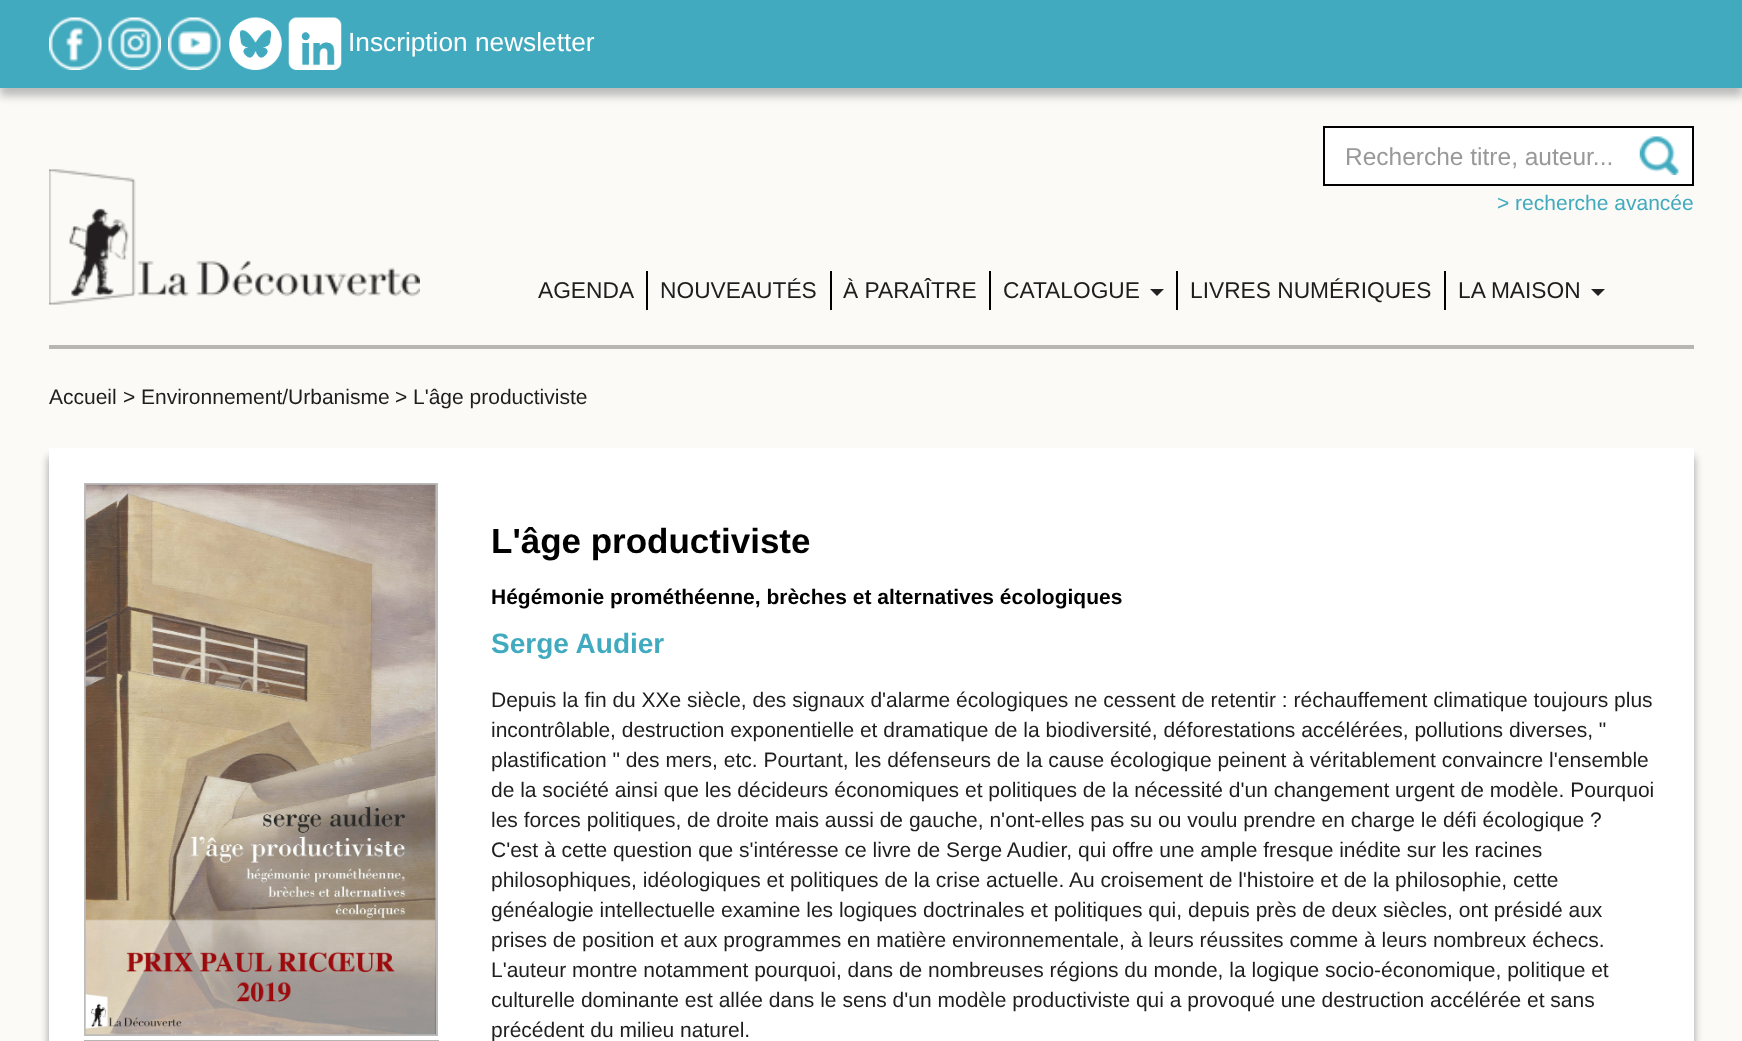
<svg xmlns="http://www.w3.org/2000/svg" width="1742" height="1041">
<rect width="100%" height="100%" fill="#fbfaf6"/>
<rect y="9" width="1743" height="87" fill="#bbb" filter="blur(4.5px)"/>
<rect width="1742" height="88" fill="#41aabf"/>
<image x="49" y="17" width="53" height="53" href="media/1.png"/>
<image x="108" y="17" width="53" height="53" href="media/2.png"/>
<image x="168" y="17" width="53" height="53" href="media/3.png"/>
<image x="229" y="17" width="53" height="53" href="media/4.png"/>
<image x="288" y="17" width="54" height="53" href="media/5.png"/>
<text x="348" y="51" style="font-family:Liberation Sans;font-size:26.25px;fill:#fff">Inscription newsletter</text>
<image x="49" y="169" width="371" height="136" href="media/6.png"/>
<rect x="1325" y="128" width="367" height="56" fill="#fff"/>
<image x="1639" y="136" width="40" height="39" href="media/7.png"/>
<rect x="1324" y="127" width="369" height="58" fill="none" stroke="#000" stroke-width="2"/>
<text x="1345" y="165" style="font-family:Liberation Sans;font-size:24.5px;fill:#999">Recherche titre, auteur...</text>
<text x="1497" y="210" style="font-family:Liberation Sans;font-size:21px;fill:#41aabf">&gt; recherche avancée</text>
<text x="538" y="298" style="font-family:Liberation Sans;font-size:22.75px;fill:#1e1e1e">AGENDA</text>
<rect x="646" y="271" width="2" height="39" fill="#000"/>
<text x="660" y="298" style="font-family:Liberation Sans;font-size:22.75px;fill:#1e1e1e">NOUVEAUTÉS</text>
<rect x="830" y="271" width="2" height="39" fill="#000"/>
<text x="843" y="298" style="font-family:Liberation Sans;font-size:22.75px;fill:#1e1e1e">À PARAÎTRE</text>
<rect x="989" y="271" width="2" height="39" fill="#000"/>
<text x="1003" y="298" style="font-family:Liberation Sans;font-size:22.75px;fill:#1e1e1e">CATALOGUE</text>
<path d="M1150 289h14l-7 7z" fill="#222"/>
<rect x="1176" y="271" width="2" height="39" fill="#000"/>
<text x="1190" y="298" style="font-family:Liberation Sans;font-size:22.75px;fill:#1e1e1e">LIVRES NUMÉRIQUES</text>
<rect x="1444" y="271" width="2" height="39" fill="#000"/>
<text x="1458" y="298" style="font-family:Liberation Sans;font-size:22.75px;fill:#1e1e1e">LA MAISON</text>
<path d="M1591 289h14l-7 7z" fill="#222"/>
<rect x="49" y="345" width="1645" height="4" fill="#b7b6b3"/>
<text x="49" y="404" style="font-family:Liberation Sans;font-size:21px;fill:#1e1e1e">Accueil</text>
<text x="123" y="404" style="font-family:Liberation Sans;font-size:21px;fill:#1e1e1e">&gt;</text>
<text x="141" y="404" style="font-family:Liberation Sans;font-size:21px;fill:#1e1e1e">Environnement/Urbanisme</text>
<text x="395" y="404" style="font-family:Liberation Sans;font-size:21px;fill:#1e1e1e">&gt;</text>
<text x="413" y="404" style="font-family:Liberation Sans;font-size:21px;fill:#1e1e1e">L'âge productiviste</text>
<rect x="49" y="457" width="1645" height="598" fill="#999" filter="blur(4.5px)"/>
<rect x="49" y="448" width="1645" height="593" fill="#fff"/>
<rect x="85" y="484" width="352" height="551" fill="none" stroke="#bbb" stroke-width="2"/>
<image x="85" y="484" width="351" height="551" href="media/8.png"/>
<rect x="84" y="1040" width="355" height="1" fill="#b7b6b3"/>
<text x="491" y="553" style="font-family:Liberation Sans;font-size:35px;font-weight:bold;fill:#000">L'âge productiviste</text>
<text x="491" y="604" style="font-family:Liberation Sans;font-size:21px;font-weight:bold;fill:#000">Hégémonie prométhéenne, brèches et alternatives écologiques</text>
<text x="491" y="653" style="font-family:Liberation Sans;font-size:28px;font-weight:bold;fill:#41aabf">Serge Audier</text>
<text x="491" y="707" style="font-family:Liberation Sans;font-size:21px;fill:#1e1e1e">Depuis la fin du XXe siècle, des signaux d'alarme écologiques ne cessent de retentir : réchauffement climatique toujours plus</text>
<text x="491" y="737" style="font-family:Liberation Sans;font-size:21px;fill:#1e1e1e">incontrôlable, destruction exponentielle et dramatique de la biodiversité, déforestations accélérées, pollutions diverses, "</text>
<text x="491" y="767" style="font-family:Liberation Sans;font-size:21px;fill:#1e1e1e">plastification " des mers, etc. Pourtant, les défenseurs de la cause écologique peinent à véritablement convaincre l'ensemble</text>
<text x="491" y="797" style="font-family:Liberation Sans;font-size:21px;fill:#1e1e1e">de la société ainsi que les décideurs économiques et politiques de la nécessité d'un changement urgent de modèle. Pourquoi</text>
<text x="491" y="827" style="font-family:Liberation Sans;font-size:21px;fill:#1e1e1e">les forces politiques, de droite mais aussi de gauche, n'ont-elles pas su ou voulu prendre en charge le défi écologique ?</text>
<text x="491" y="857" style="font-family:Liberation Sans;font-size:21px;fill:#1e1e1e">C'est à cette question que s'intéresse ce livre de Serge Audier, qui offre une ample fresque inédite sur les racines</text>
<text x="491" y="887" style="font-family:Liberation Sans;font-size:21px;fill:#1e1e1e">philosophiques, idéologiques et politiques de la crise actuelle. Au croisement de l'histoire et de la philosophie, cette</text>
<text x="491" y="917" style="font-family:Liberation Sans;font-size:21px;fill:#1e1e1e">généalogie intellectuelle examine les logiques doctrinales et politiques qui, depuis près de deux siècles, ont présidé aux</text>
<text x="491" y="947" style="font-family:Liberation Sans;font-size:21px;fill:#1e1e1e">prises de position et aux programmes en matière environnementale, à leurs réussites comme à leurs nombreux échecs.</text>
<text x="491" y="977" style="font-family:Liberation Sans;font-size:21px;fill:#1e1e1e">L'auteur montre notamment pourquoi, dans de nombreuses régions du monde, la logique socio-économique, politique et</text>
<text x="491" y="1007" style="font-family:Liberation Sans;font-size:21px;fill:#1e1e1e">culturelle dominante est allée dans le sens d'un modèle productiviste qui a provoqué une destruction accélérée et sans</text>
<text x="491" y="1037" style="font-family:Liberation Sans;font-size:21px;fill:#1e1e1e">précédent du milieu naturel.</text>
</svg>
